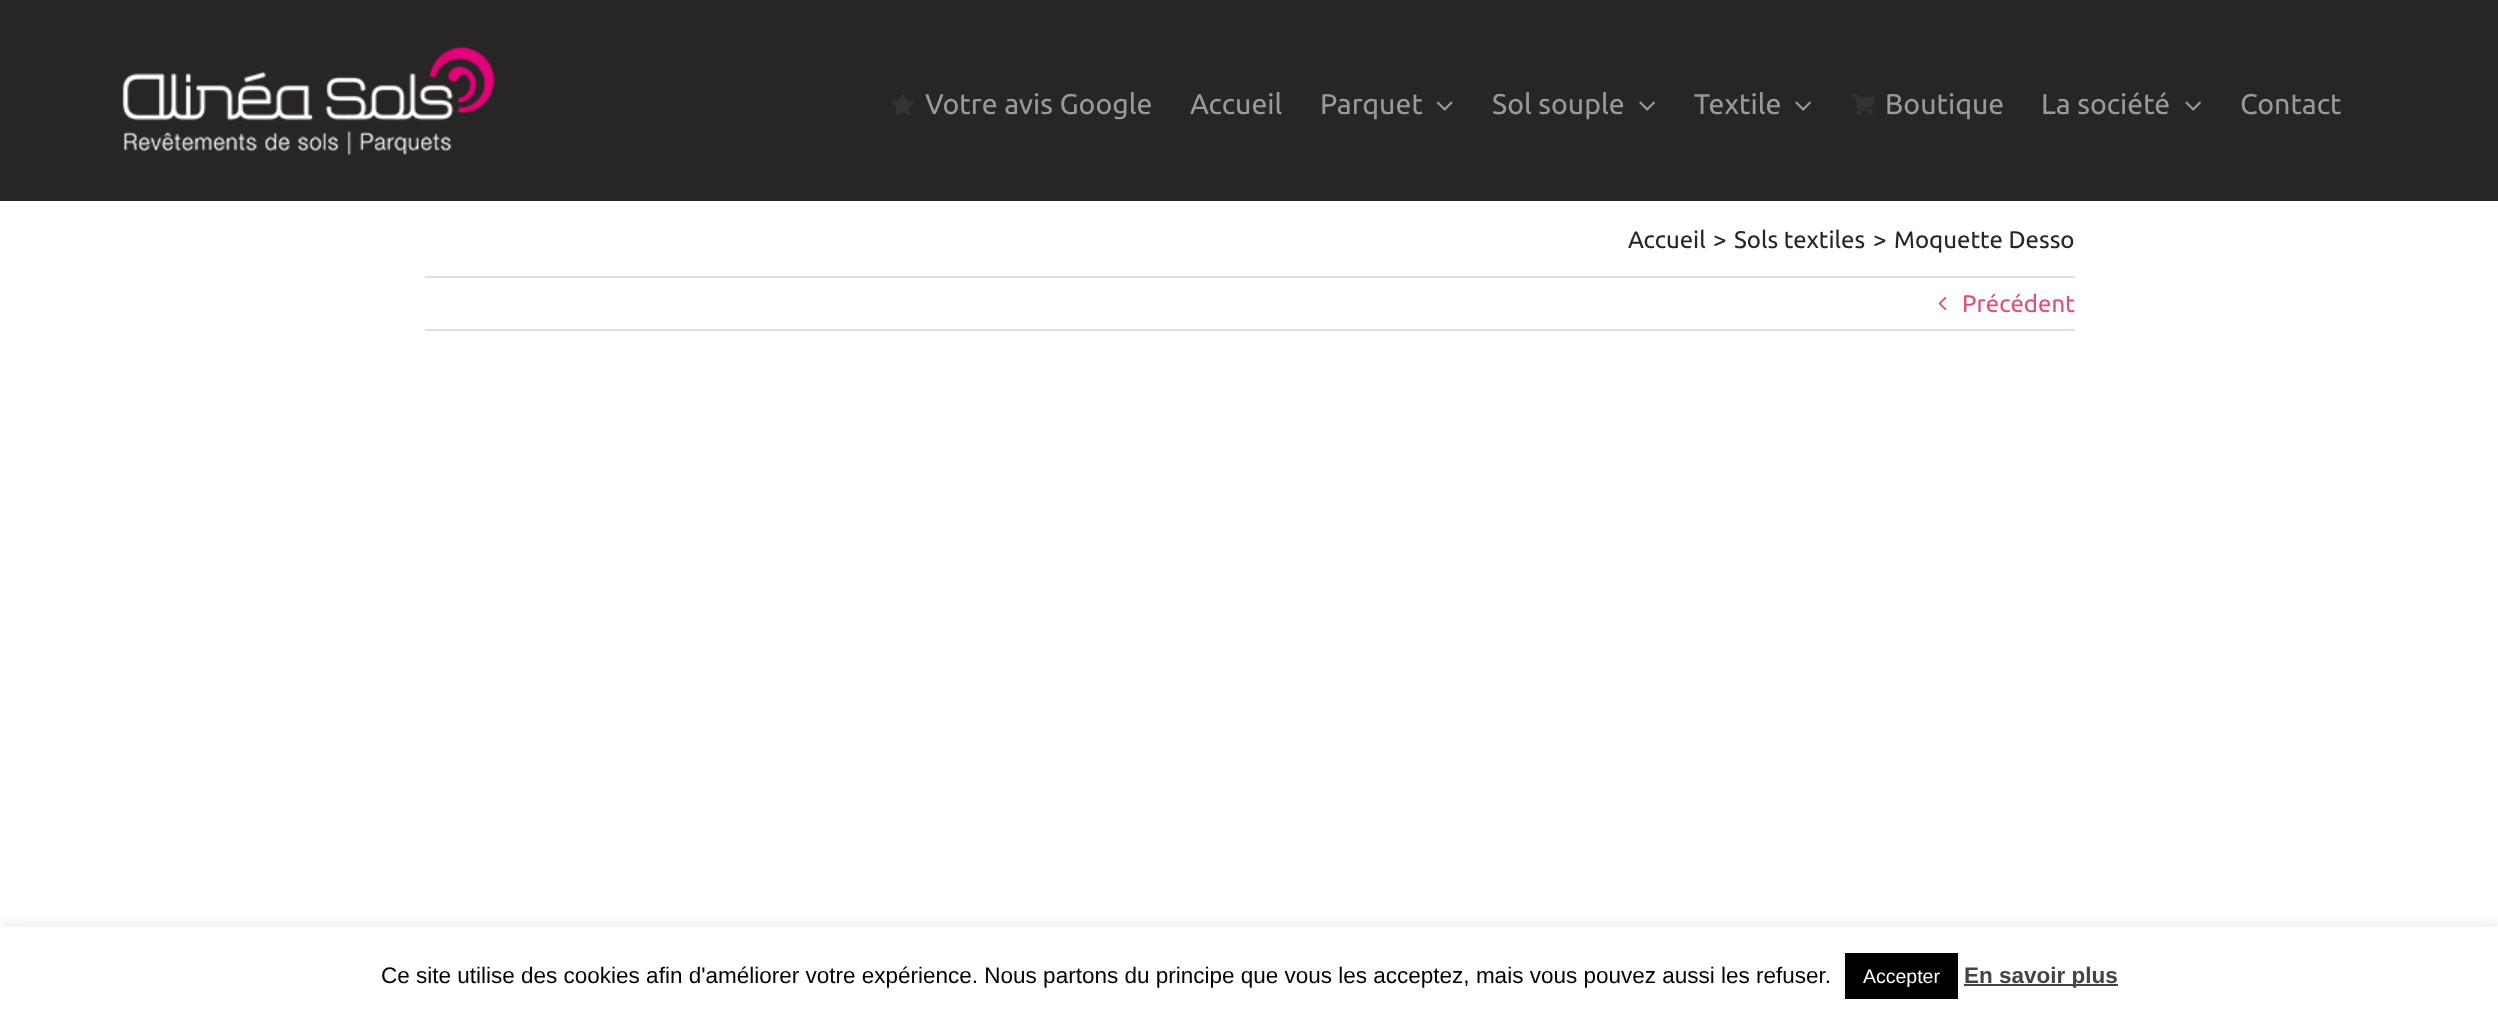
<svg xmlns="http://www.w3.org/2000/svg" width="2498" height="1016">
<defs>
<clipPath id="clip1"><rect x="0" y="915" width="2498" height="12"/></clipPath>
</defs>
<rect width="100%" height="100%" fill="#fff"/>
<rect width="2498" height="201" fill="#282525"/>
<image x="122" y="46" width="373" height="109" href="media/1.png"/>
<image x="892" y="94" width="22" height="21" href="media/2.png"/>
<text x="925" y="114" style="font-family:Ubuntu;font-size:28.5px;fill:#999">Votre avis Google</text>
<text x="1190" y="114" style="font-family:Ubuntu;font-size:28.5px;fill:#999">Accueil</text>
<text x="1320" y="114" style="font-family:Ubuntu;font-size:28.5px;fill:#999">Parquet</text>
<image x="1436" y="101" width="17" height="10" href="media/3.png"/>
<text x="1492" y="114" style="font-family:Ubuntu;font-size:28.5px;fill:#999">Sol souple</text>
<image x="1639" y="101" width="16" height="10" href="media/4.png"/>
<text x="1694" y="114" style="font-family:Ubuntu;font-size:28.5px;fill:#999">Textile</text>
<image x="1795" y="101" width="16" height="10" href="media/4.png"/>
<image x="1851" y="94" width="24" height="21" href="media/5.png"/>
<text x="1885" y="114" style="font-family:Ubuntu;font-size:28.5px;fill:#999">Boutique</text>
<text x="2041" y="114" style="font-family:Ubuntu;font-size:28.5px;fill:#999">La société</text>
<image x="2185" y="101" width="16" height="10" href="media/4.png"/>
<text x="2240" y="114" style="font-family:Ubuntu;font-size:28.5px;fill:#999">Contact</text>
<text x="1628" y="248" style="font-family:Ubuntu;font-size:24px;fill:#282525">Accueil</text>
<text x="1713" y="248" style="font-family:Ubuntu;font-size:24px;fill:#282525">&gt;</text>
<text x="1734" y="248" style="font-family:Ubuntu;font-size:24px;fill:#282525">Sols textiles</text>
<text x="1873" y="248" style="font-family:Ubuntu;font-size:24px;fill:#282525">&gt;</text>
<text x="1894" y="248" style="font-family:Ubuntu;font-size:24px;fill:#282525">Moquette Desso</text>
<rect x="425" y="276" width="1650" height="2" fill="#e0dede"/>
<rect x="425" y="329" width="1650" height="2" fill="#e0dede"/>
<image x="1938" y="296" width="9" height="15" href="media/6.png"/>
<text x="1962" y="312" style="font-family:Ubuntu;font-size:24px;fill:#e54c7c">Précédent</text>
<g clip-path="url(#clip1)">
<rect y="926" width="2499" height="90" fill="#acabab4d" filter="blur(7.5px)"/>
</g>
<text x="381" y="983" style="font-family:Liberation Sans;font-size:22.5px;fill:#000">Ce site utilise des cookies afin d'améliorer votre expérience. Nous partons du principe que vous les acceptez, mais vous pouvez aussi les refuser.</text>
<rect x="1845" y="953" width="113" height="46" fill="#000"/>
<text x="1863" y="983" style="font-family:Liberation Sans;font-size:19.5px;fill:#fff">Accepter</text>
<rect x="1964" y="984" width="154" height="2" fill="#444"/>
<text x="1964" y="983" style="font-family:Liberation Sans;font-size:22.5px;font-weight:bold;fill:#444">En savoir plus</text>
</svg>
